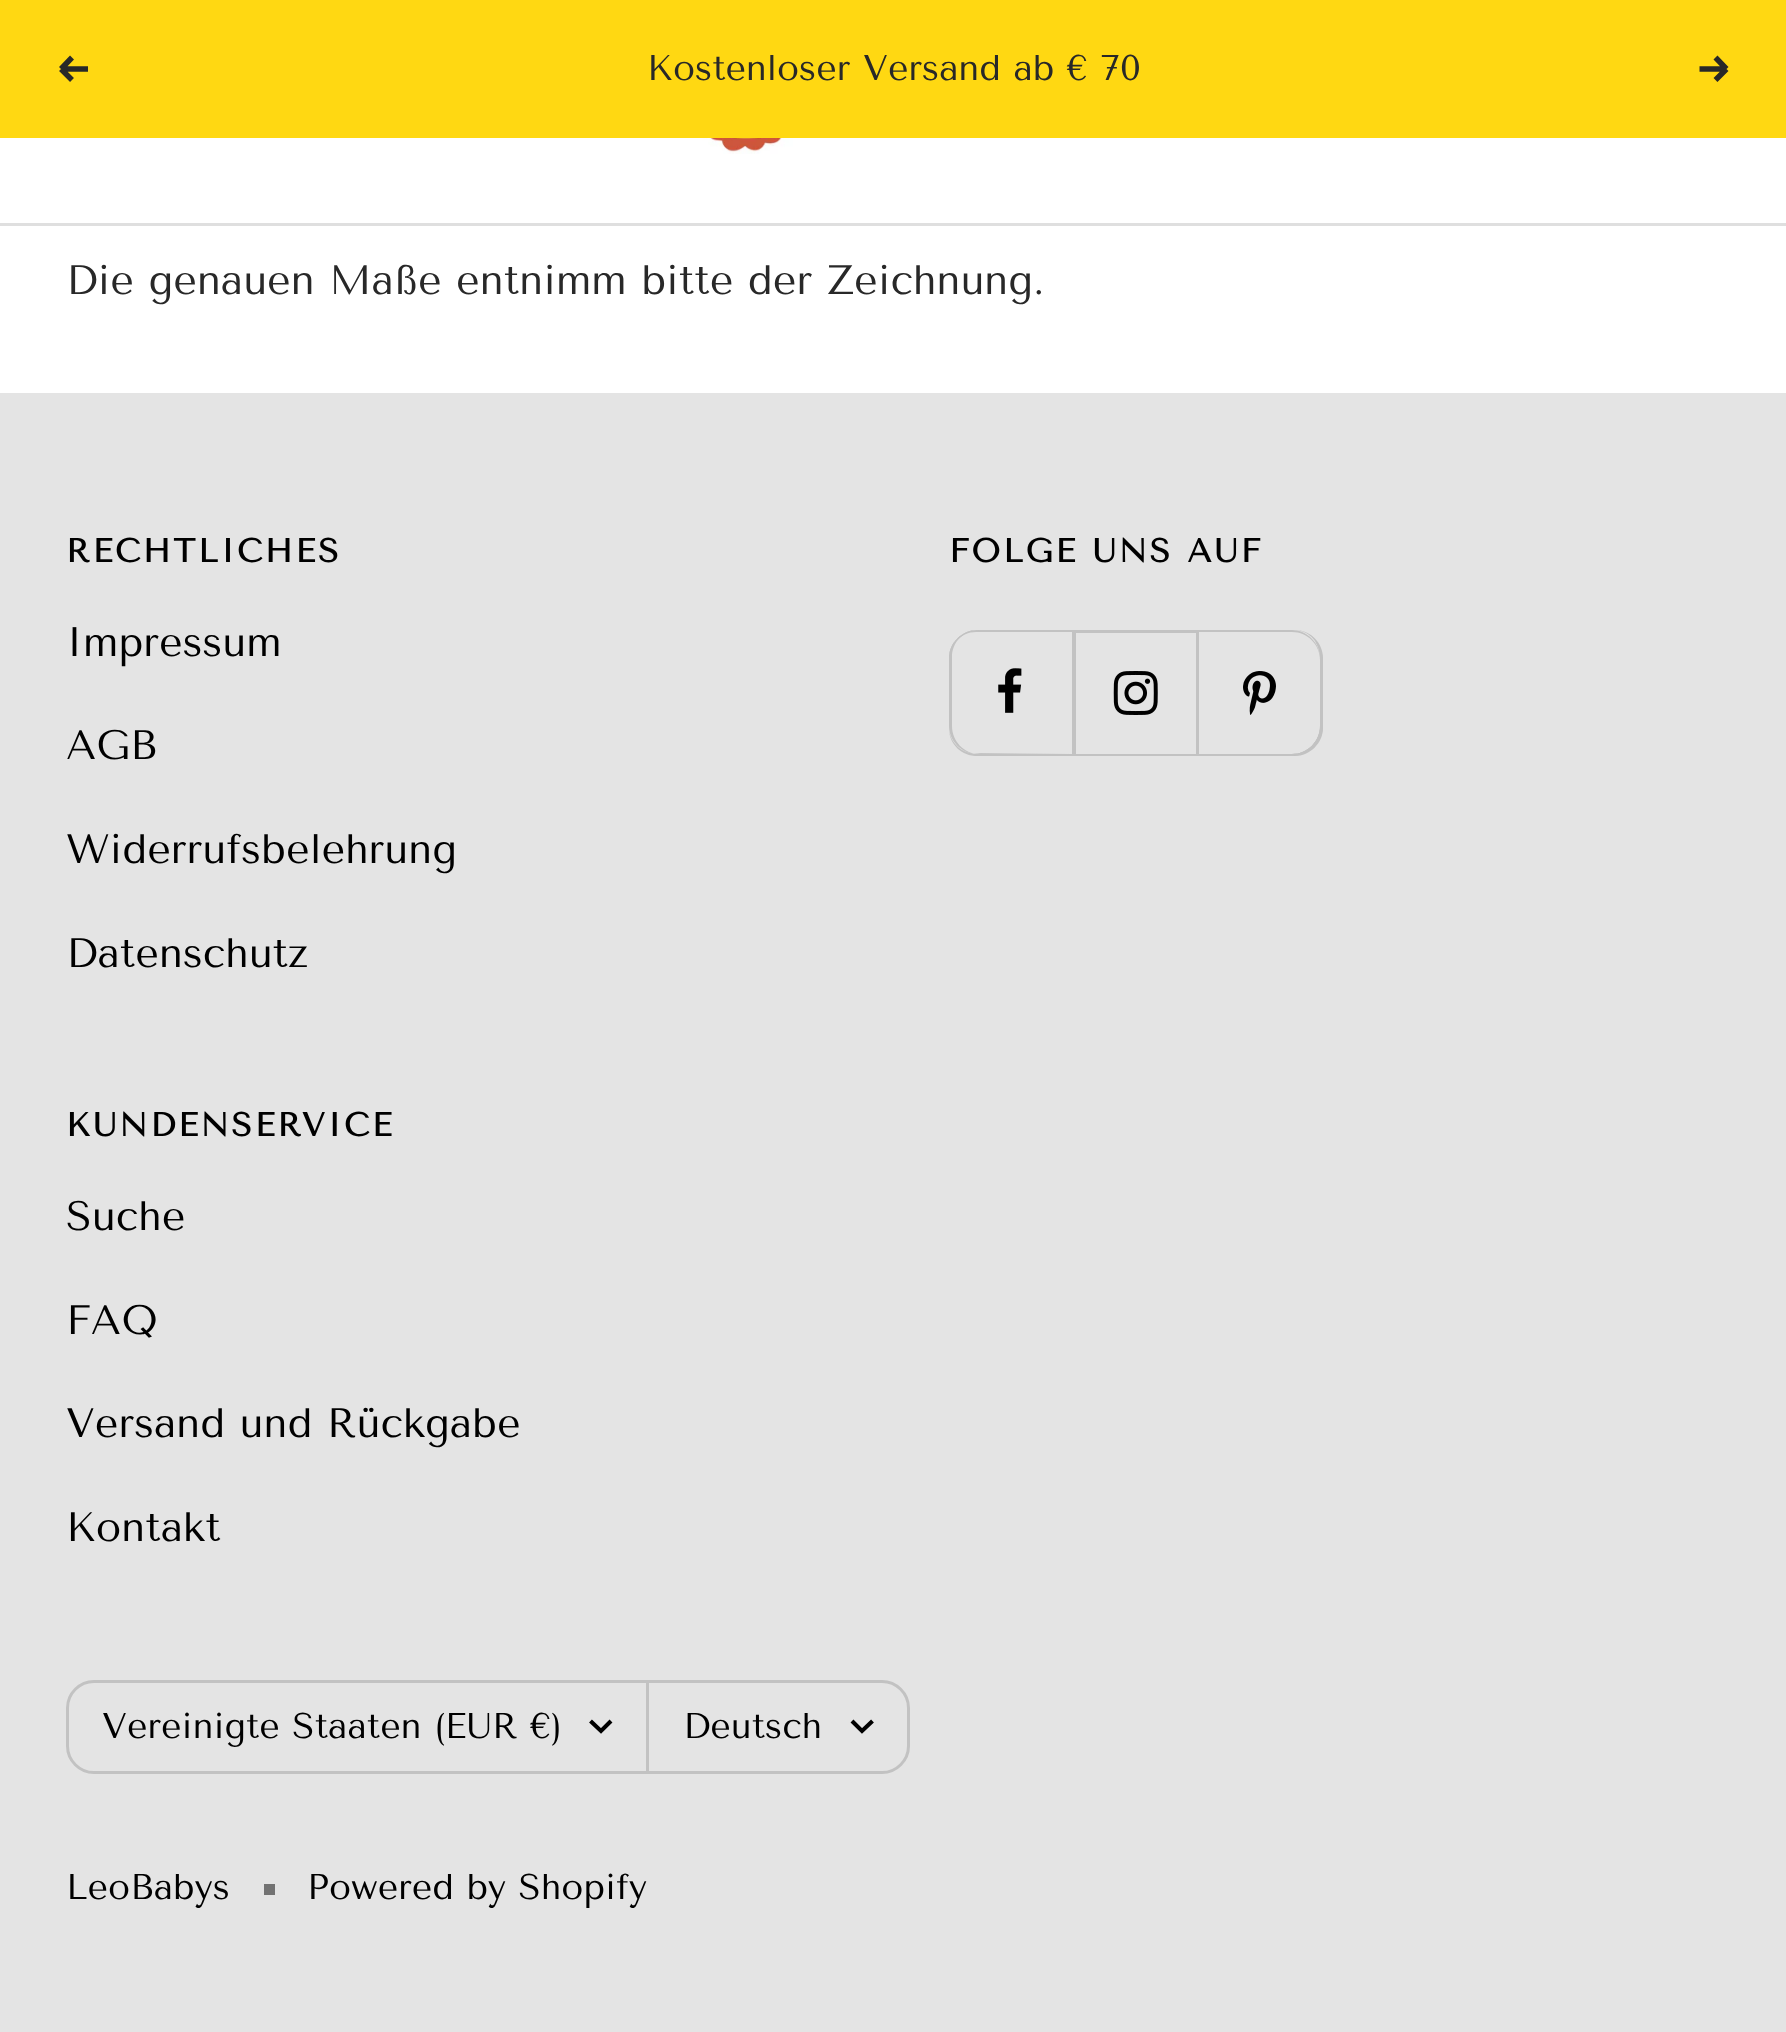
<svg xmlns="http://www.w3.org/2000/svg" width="1786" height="2032">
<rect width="100%" height="100%" fill="#fff"/>
<rect width="1786" height="138" fill="#ffd812"/>
<path d="M88 69h-27m0 0l11 11m-11-11l11-11.5" fill="none" stroke="#282828" stroke-width="5.5"/>
<text x="647" y="80" style="font-family:Tenor Sans;font-size:35.75px;fill:#282828">Kostenloser Versand ab € 70</text>
<path d="M1699.5 69h27m0 0l-11 11m11-11l-11-11.5" fill="none" stroke="#282828" stroke-width="5.5"/>
<path d="M0 223v3h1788v-223v220z" fill="#dfdfdf"/>
<image x="702" y="138" width="375" height="16" href="media/1.png"/>
<text x="66" y="294" style="font-family:Tenor Sans;font-size:41.25px;fill:#282828">Die genauen Maße entnimm bitte der Zeichnung.</text>
<rect y="393" width="1786" height="1639" fill="#e4e4e4"/>
<text x="66" y="562" style="font-family:Tenor Sans;font-size:33px;font-weight:bold;letter-spacing:2.75px;fill:#000">RECHTLICHES</text>
<text x="66" y="656" style="font-family:Tenor Sans;font-size:41.25px;fill:#000">Impressum</text>
<text x="66" y="759" style="font-family:Tenor Sans;font-size:41.25px;fill:#000">AGB</text>
<text x="66" y="863" style="font-family:Tenor Sans;font-size:41.25px;fill:#000">Widerrufsbelehrung</text>
<text x="66" y="967" style="font-family:Tenor Sans;font-size:41.25px;fill:#000">Datenschutz</text>
<text x="949" y="562" style="font-family:Tenor Sans;font-size:33px;font-weight:bold;letter-spacing:2.75px;fill:#000">FOLGE UNS AUF</text>
<path d="M962 750c5 4 11 6 18 6h95v-123h-3v121h-96c-5 0-10-2-14-4z" fill="#c2c2c2"/>
<path d="M949 730c1 15 13 26 28 26h96v-123h-1v121h-96c-13 0-25-10-27-24z" fill="#c2c2c2"/>
<path d="M974 753l6 1h95v-124h-3v124z" fill="#c2c2c2"/>
<path d="M976 632h96v122h1v-124h-96c-15 0-28 13-28 28v2c0-15 12-28 27-28z" fill="#c2c2c2"/>
<path d="M977 630c-15 0-28 13-28 28v68c0 15 13 28 28 28h2c-15 0-27-13-27-28v-69c0-15 12-27 27-27z" fill="#c2c2c2"/>
<image x="998" y="668" width="24" height="45" href="media/2.png"/>
<path d="M1075 754v2h124v-123h-3v121z" fill="#c2c2c2"/>
<path d="M1075 754h124v-124h-3v124z" fill="#c2c2c2"/>
<rect x="1073" y="630" width="123" height="3" fill="#c2c2c2"/>
<rect x="1075" y="630" width="1" height="124" fill="#c2c2c2"/>
<image x="1113" y="671" width="45" height="44" href="media/3.png"/>
<path d="M1199 754v2h96c15 0 28-13 28-28v-67c0-8-3-15-8-20c3 5 5 10 5 16v69c0 15-12 28-28 28z" fill="#c2c2c2"/>
<path d="M1196 633v123h96c15 0 28-13 28-28v-2c0 15-12 28-28 28h-96z" fill="#c2c2c2"/>
<path d="M1199 754h96c15 0 28-13 28-28v-68c0-15-12-27-26-28c13 2 23 13 23 27v69c0 15-12 28-28 28z" fill="#c2c2c2"/>
<path d="M1196 632h96c16 0 28 13 28 28v-2c0-15-13-28-28-28h-96z" fill="#c2c2c2"/>
<image x="1243" y="671" width="33" height="44" href="media/4.png"/>
<text x="66" y="1136" style="font-family:Tenor Sans;font-size:33px;font-weight:bold;letter-spacing:2.75px;fill:#000">KUNDENSERVICE</text>
<text x="66" y="1230" style="font-family:Tenor Sans;font-size:41.25px;fill:#000">Suche</text>
<text x="66" y="1334" style="font-family:Tenor Sans;font-size:41.25px;fill:#000">FAQ</text>
<text x="66" y="1437" style="font-family:Tenor Sans;font-size:41.25px;fill:#000">Versand und Rückgabe</text>
<text x="66" y="1541" style="font-family:Tenor Sans;font-size:41.25px;fill:#000">Kontakt</text>
<path d="M94 1681.5h553.5v91h-553.5c-14.5 0-26.5-12-26.5-26.5v-38c0-14.5 12-26.5 26.5-26.5z" fill="none" stroke="#c2c2c2" stroke-width="3"/>
<text x="102" y="1738" style="font-family:Tenor Sans;font-size:35.75px;fill:#000">Vereinigte Staaten (EUR €)</text>
<path d="M590.5 1721l10.5 10l10-10" fill="none" stroke="#000" stroke-width="4.1"/>
<path d="M647.5 1681.5h234.5c14.5 0 26.5 12 26.5 26.5v38c0 14.5-12 26.5-26.5 26.5h-234.5z" fill="none" stroke="#c2c2c2" stroke-width="3"/>
<text x="683" y="1738" style="font-family:Tenor Sans;font-size:35.75px;fill:#000">Deutsch</text>
<path d="M852 1721l10 10l10.5-10" fill="none" stroke="#000" stroke-width="4.1"/>
<text x="66" y="1899" style="font-family:Tenor Sans;font-size:35.75px;fill:#000">LeoBabys</text>
<rect x="264" y="1884" width="11" height="11" fill="#727272"/>
<text x="307" y="1899" style="font-family:Tenor Sans;font-size:35.75px;fill:#000">Powered by Shopify</text>
</svg>
